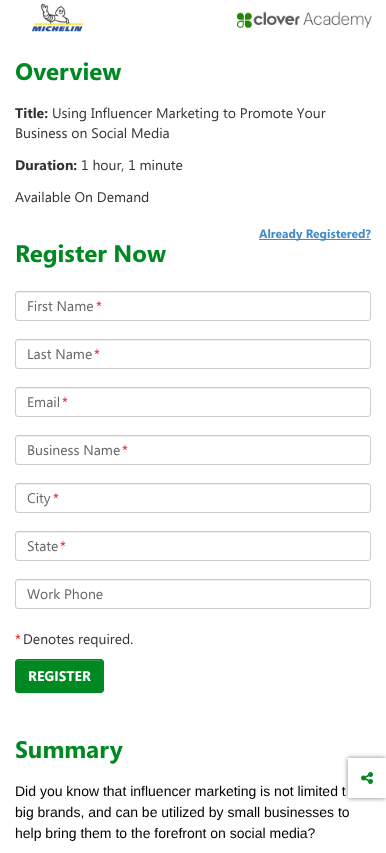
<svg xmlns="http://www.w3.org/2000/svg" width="386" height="853">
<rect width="100%" height="100%" fill="#fff"/>
<image x="31" y="3" width="341" height="29" href="media/1.png"/>
<text x="15" y="80" style="font-family:Segoe UI;font-size:24px;font-weight:bold;fill:#082">Overview</text>
<text x="15" y="118" style="font-family:Segoe UI;font-size:14px;font-weight:bold;fill:#333">Title:</text>
<text x="52" y="118" style="font-family:Segoe UI;font-size:14px;fill:#333">Using Influencer Marketing to Promote Your</text>
<text x="15" y="138" style="font-family:Segoe UI;font-size:14px;fill:#333">Business on Social Media</text>
<text x="15" y="170" style="font-family:Segoe UI;font-size:14px;font-weight:bold;fill:#333">Duration:</text>
<text x="81" y="170" style="font-family:Segoe UI;font-size:14px;fill:#333">1 hour, 1 minute</text>
<text x="15" y="202" style="font-family:Segoe UI;font-size:14px;fill:#333">Available On Demand</text>
<rect x="259" y="239" width="112" height="1" fill="#428bca"/>
<text x="259" y="238" style="font-family:Segoe UI;font-size:12px;font-weight:bold;fill:#428bca">Already Registered?</text>
<text x="15" y="262" style="font-family:Segoe UI;font-size:24px;font-weight:bold;fill:#082">Register Now</text>
<path d="M18 293h350c1 0 2 1 2 2c0-1 0-3-2-3h-350c-2 0-2 2-2 3c0-1 1-2 2-2z" fill="#ececec"/>
<rect x="15.5" y="291.5" width="355" height="29" rx="2.5" fill="none" stroke="#ccc"/>
<text x="27" y="311" style="font-family:Segoe UI;font-size:14px;fill:#666">First Name</text>
<text x="96" y="311" style="font-family:Segoe UI;font-size:14px;fill:#f00">*</text>
<path d="M18 341h350c1 0 2 1 2 2c0-1 0-3-2-3h-350c-2 0-2 2-2 3c0-1 1-2 2-2z" fill="#ececec"/>
<rect x="15.5" y="339.5" width="355" height="29" rx="2.5" fill="none" stroke="#ccc"/>
<text x="27" y="359" style="font-family:Segoe UI;font-size:14px;fill:#666">Last Name</text>
<text x="94" y="359" style="font-family:Segoe UI;font-size:14px;fill:#f00">*</text>
<path d="M18 389h350c1 0 2 1 2 2c0-1 0-3-2-3h-350c-2 0-2 2-2 3c0-1 1-2 2-2z" fill="#ececec"/>
<rect x="15.5" y="387.5" width="355" height="29" rx="2.5" fill="none" stroke="#ccc"/>
<text x="27" y="407" style="font-family:Segoe UI;font-size:14px;fill:#666">Email</text>
<text x="62" y="407" style="font-family:Segoe UI;font-size:14px;fill:#f00">*</text>
<path d="M18 437h350c1 0 2 1 2 2c0-1 0-3-2-3h-350c-2 0-2 2-2 3c0-1 1-2 2-2z" fill="#ececec"/>
<rect x="15.5" y="435.5" width="355" height="29" rx="2.5" fill="none" stroke="#ccc"/>
<text x="27" y="455" style="font-family:Segoe UI;font-size:14px;fill:#666">Business Name</text>
<text x="122" y="455" style="font-family:Segoe UI;font-size:14px;fill:#f00">*</text>
<path d="M18 485h350c1 0 2 1 2 2c0-1 0-3-2-3h-350c-2 0-2 2-2 3c0-1 1-2 2-2z" fill="#ececec"/>
<rect x="15.5" y="483.5" width="355" height="29" rx="2.5" fill="none" stroke="#ccc"/>
<text x="27" y="503" style="font-family:Segoe UI;font-size:14px;fill:#666">City</text>
<text x="53" y="503" style="font-family:Segoe UI;font-size:14px;fill:#f00">*</text>
<path d="M18 533h350c1 0 2 1 2 2c0-1 0-3-2-3h-350c-2 0-2 2-2 3c0-1 1-2 2-2z" fill="#ececec"/>
<rect x="15.5" y="531.5" width="355" height="29" rx="2.5" fill="none" stroke="#ccc"/>
<text x="27" y="551" style="font-family:Segoe UI;font-size:14px;fill:#666">State</text>
<text x="60" y="551" style="font-family:Segoe UI;font-size:14px;fill:#f00">*</text>
<path d="M18 581h350c1 0 2 1 2 2c0-1 0-3-2-3h-350c-2 0-2 2-2 3c0-1 1-2 2-2z" fill="#ececec"/>
<rect x="15.5" y="579.5" width="355" height="29" rx="2.5" fill="none" stroke="#ccc"/>
<text x="27" y="599" style="font-family:Segoe UI;font-size:14px;fill:#666">Work Phone</text>
<text x="15" y="644" style="font-family:Segoe UI;font-size:14px;fill:#f00">*</text>
<text x="23" y="644" style="font-family:Segoe UI;font-size:14px;fill:#333">Denotes required.</text>
<rect x="15" y="660" width="89" height="34" rx="4" fill="#00000012" filter="blur(0.5px)"/>
<rect x="15" y="659" width="89" height="34" rx="4" fill="#082"/>
<path d="M19 661h81c2 0 3 1 3 3c0-8-13-4-17-4h-54c-3 0-16-4-16 4c0-2 1-3 3-3z" fill="#269a43"/>
<rect x="15.5" y="659.5" width="88" height="33" rx="3.5" fill="none" stroke="#082"/>
<text x="28" y="681" style="font-family:Segoe UI;font-size:14px;font-weight:bold;fill:#fff">REGISTER</text>
<text x="15" y="758" style="font-family:Segoe UI;font-size:24px;font-weight:bold;fill:#082">Summary</text>
<text x="15" y="796" style="font-family:Liberation Sans;font-size:14px;fill:#000">Did you know that influencer marketing is not limited t</text>
<text x="15" y="817" style="font-family:Liberation Sans;font-size:14px;fill:#000">big brands, and can be utilized by small businesses to</text>
<text x="15" y="838" style="font-family:Liberation Sans;font-size:14px;fill:#000">help bring them to the forefront on social media?</text>
<rect x="348" y="758" width="38" height="40" fill="#808080" filter="blur(2.5px)"/>
<rect x="348" y="758" width="38" height="40" fill="#fff"/>
<image x="361" y="772" width="12" height="12" href="media/2.png"/>
</svg>
